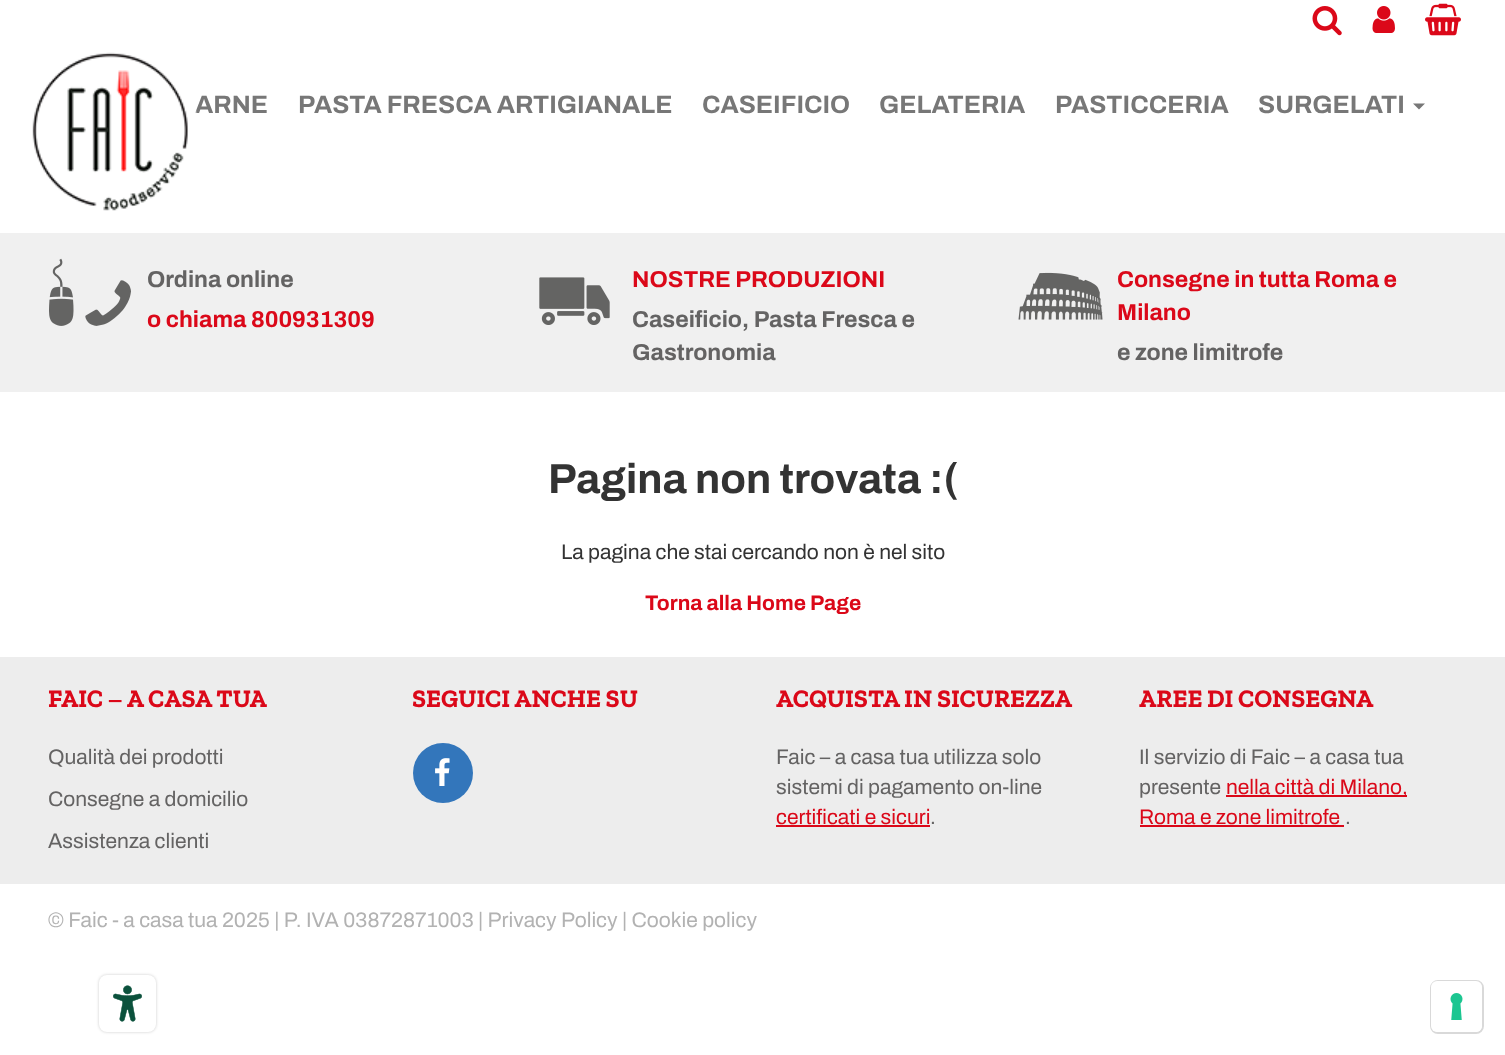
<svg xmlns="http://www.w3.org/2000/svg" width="1505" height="1055">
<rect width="100%" height="100%" fill="#fff"/>
<image x="1312" y="6" width="30" height="30" href="media/1.png"/>
<image x="1372" y="6" width="23" height="27" href="media/2.png"/>
<image x="1425" y="3" width="36" height="33" href="media/3.png"/>
<text x="195" y="113" style="font-family:Archivo;font-size:25.25px;font-weight:bold;fill:#777">ARNE</text>
<image x="32" y="52" width="165" height="159" href="media/4.png"/>
<text x="298" y="113" style="font-family:Archivo;font-size:25.25px;font-weight:bold;fill:#777">PASTA FRESCA ARTIGIANALE</text>
<text x="702" y="113" style="font-family:Archivo;font-size:25.25px;font-weight:bold;fill:#777">CASEIFICIO</text>
<text x="879" y="113" style="font-family:Archivo;font-size:25.25px;font-weight:bold;fill:#777">GELATERIA</text>
<text x="1055" y="113" style="font-family:Archivo;font-size:25.25px;font-weight:bold;fill:#777">PASTICCERIA</text>
<text x="1258" y="113" style="font-family:Archivo;font-size:25.25px;font-weight:bold;fill:#777">SURGELATI</text>
<path d="M1413 103.5h12l-6 6z" fill="#777"/>
<rect y="233" width="1505" height="159" fill="#f0f0f0"/>
<image x="49" y="258" width="82" height="68" href="media/5.png"/>
<text x="147" y="287" style="font-family:Archivo;font-size:23.1px;font-weight:bold;fill:#646363">Ordina online</text>
<text x="147" y="327" style="font-family:Archivo;font-size:23.1px;font-weight:bold;fill:#db0819">o chiama 800931309</text>
<image x="539" y="277" width="71" height="48" href="media/6.png"/>
<text x="632" y="287" style="font-family:Archivo;font-size:23.1px;font-weight:bold;fill:#db0819">NOSTRE PRODUZIONI</text>
<text x="632" y="327" style="font-family:Archivo;font-size:23.1px;font-weight:bold;fill:#646363">Caseificio, Pasta Fresca e</text>
<text x="632" y="360" style="font-family:Archivo;font-size:23.1px;font-weight:bold;fill:#646363">Gastronomia</text>
<image x="1018" y="272" width="85" height="48" href="media/7.png"/>
<text x="1117" y="287" style="font-family:Archivo;font-size:23.1px;font-weight:bold;fill:#db0819">Consegne in tutta Roma e</text>
<text x="1117" y="320" style="font-family:Archivo;font-size:23.1px;font-weight:bold;fill:#db0819">Milano</text>
<text x="1117" y="360" style="font-family:Archivo;font-size:23.1px;font-weight:bold;fill:#646363">e zone limitrofe</text>
<text x="548" y="493" style="font-family:Archivo;font-size:42px;font-weight:bold;fill:#333">Pagina non trovata :(</text>
<text x="561" y="559" style="font-family:Archivo;font-size:21px;fill:#333">La pagina che stai cercando non è nel sito</text>
<text x="645" y="610" style="font-family:Archivo;font-size:21px;font-weight:bold;fill:#db0819">Torna alla Home Page</text>
<rect y="657" width="1505" height="227" fill="#ededed"/>
<text x="48" y="707" style="font-family:Zilla Slab;font-size:25.25px;font-weight:bold;fill:#db0819">FAIC – A CASA TUA</text>
<text x="48" y="764" style="font-family:Archivo;font-size:21px;fill:#646363">Qualità dei prodotti</text>
<text x="48" y="806" style="font-family:Archivo;font-size:21px;fill:#646363">Consegne a domicilio</text>
<text x="48" y="848" style="font-family:Archivo;font-size:21px;fill:#646363">Assistenza clienti</text>
<text x="412" y="707" style="font-family:Zilla Slab;font-size:25.25px;font-weight:bold;fill:#db0819">SEGUICI ANCHE SU</text>
<circle cx="443" cy="773" r="30" fill="#3376bb"/>
<image x="435" y="758" width="15" height="28" href="media/8.png"/>
<text x="776" y="707" style="font-family:Zilla Slab;font-size:25.25px;font-weight:bold;fill:#db0819">ACQUISTA IN SICUREZZA</text>
<text x="776" y="764" style="font-family:Archivo;font-size:21px;fill:#646363">Faic – a casa tua utilizza solo</text>
<text x="776" y="794" style="font-family:Archivo;font-size:21px;fill:#646363">sistemi di pagamento on-line</text>
<text x="776" y="824" style="font-family:Archivo;font-size:21px;fill:#db0819">certificati e sicuri</text>
<rect x="776" y="825" width="154" height="2" fill="#db0819"/>
<text x="930" y="824" style="font-family:Archivo;font-size:21px;fill:#646363">.</text>
<text x="1139" y="707" style="font-family:Zilla Slab;font-size:25.25px;font-weight:bold;fill:#db0819">AREE DI CONSEGNA</text>
<text x="1139" y="764" style="font-family:Archivo;font-size:21px;fill:#646363">Il servizio di Faic – a casa tua</text>
<text x="1139" y="794" style="font-family:Archivo;font-size:21px;fill:#646363">presente</text>
<rect x="1226" y="795" width="181" height="2" fill="#db0819"/>
<text x="1226" y="794" style="font-family:Archivo;font-size:21px;fill:#db0819">nella città di Milano,</text>
<text x="1139" y="824" style="font-family:Archivo;font-size:21px;fill:#db0819">Roma e zone limitrofe</text>
<rect x="1140" y="825" width="204" height="2" fill="#db0819"/>
<text x="1345" y="824" style="font-family:Archivo;font-size:21px;fill:#646363">.</text>
<text x="48" y="927" style="font-family:Archivo;font-size:21px;fill:#b2b2b2">© Faic - a casa tua 2025 | P. IVA 03872871003 | Privacy Policy | Cookie policy</text>
<rect x="99" y="975" width="57" height="57" rx="8" fill="#00000033" filter="blur(1.5px)"/>
<rect x="99" y="975" width="57" height="57" rx="8" fill="#fff"/>
<image x="113" y="985" width="29" height="37" href="media/9.png"/>
<rect x="1431" y="981" width="52" height="52" rx="7" fill="none" stroke="#d9d9d9" stroke-width="2"/>
<rect x="1431" y="981" width="51" height="51" rx="6" fill="#fff"/>
<image x="1450" y="993" width="13" height="27" href="media/10.png"/>
</svg>
